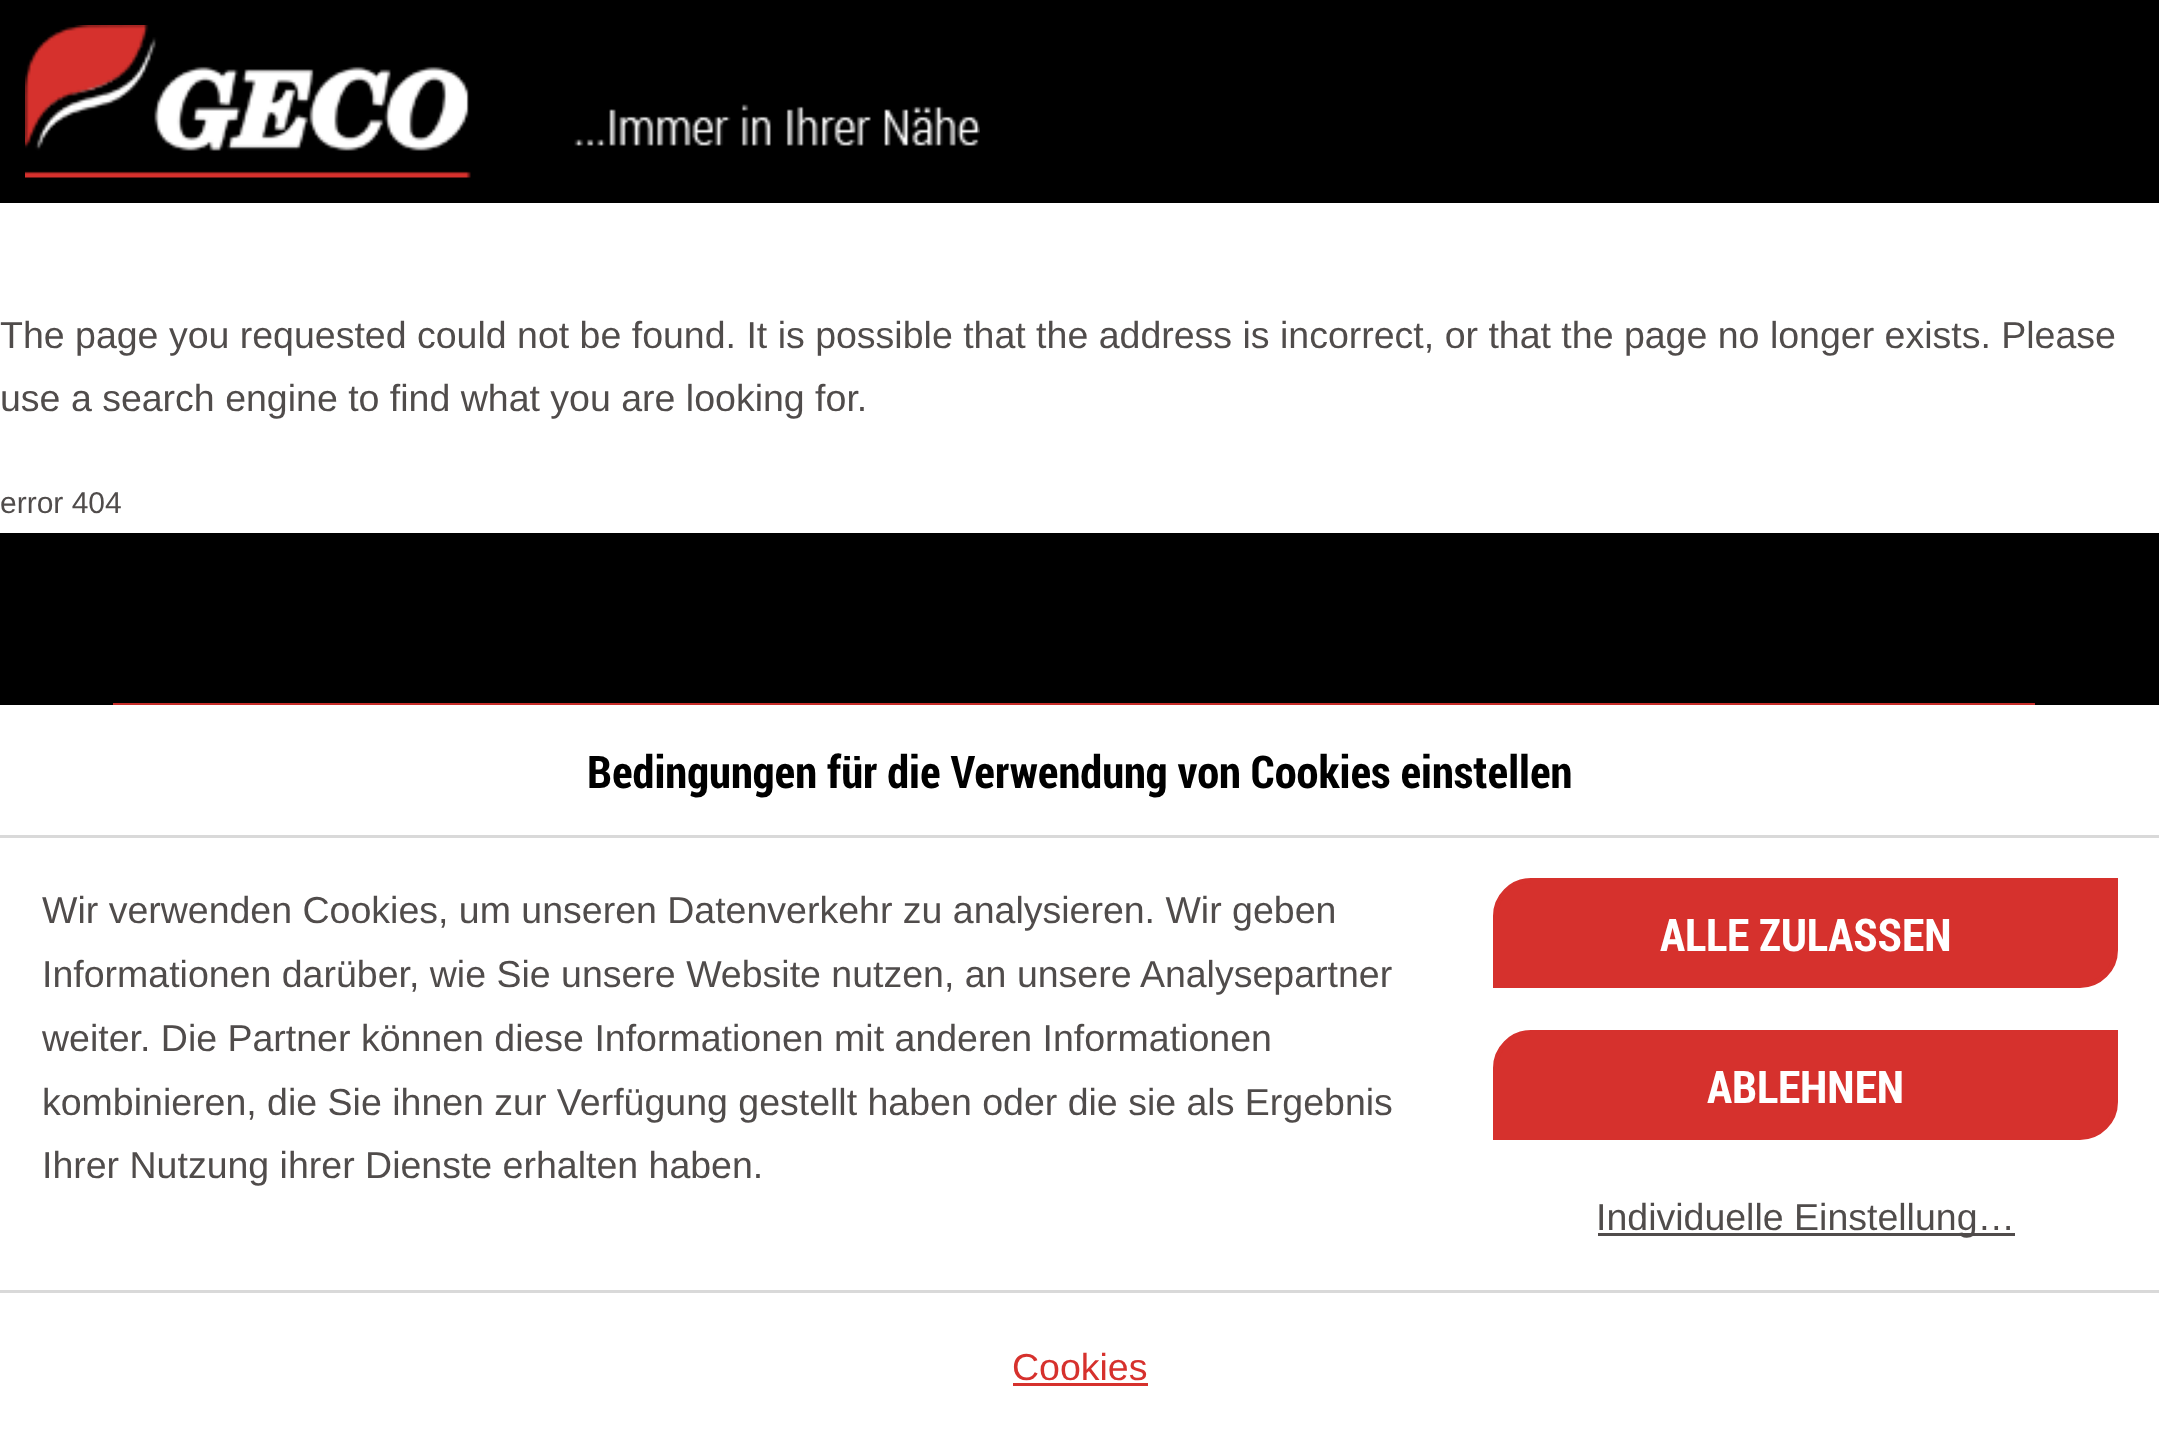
<svg xmlns="http://www.w3.org/2000/svg" width="2159" height="1440">
<rect width="100%" height="100%" fill="#000"/>
<image x="25" y="25" width="955" height="153" href="media/1.png"/>
<rect y="203" width="2159" height="330" fill="#fff"/>
<text x="0" y="348" style="font-family:Liberation Sans;font-size:37.5px;fill:#504c4b">The page you requested could not be found. It is possible that the address is incorrect, or that the page no longer exists. Please</text>
<text x="0" y="411" style="font-family:Liberation Sans;font-size:37.5px;fill:#504c4b">use a search engine to find what you are looking for.</text>
<text x="0" y="513" style="font-family:Liberation Sans;font-size:30px;fill:#504c4b">error 404</text>
<rect x="113" y="703" width="1922" height="2" fill="#d6312d"/>
<rect y="705" width="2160" height="735" fill="#00000026" filter="blur(25px)"/>
<rect y="705" width="2159" height="735" fill="#fff"/>
<rect y="835" width="2159" height="3" fill="#d9d9d9"/>
<text x="587" y="788" style="font-family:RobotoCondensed;font-size:45px;font-weight:bold;fill:#000">Bedingungen für die Verwendung von Cookies einstellen</text>
<text x="42" y="923" style="font-family:Liberation Sans;font-size:37.5px;fill:#504c4b">Wir verwenden Cookies, um unseren Datenverkehr zu analysieren. Wir geben</text>
<text x="42" y="987" style="font-family:Liberation Sans;font-size:37.5px;fill:#504c4b">Informationen darüber, wie Sie unsere Website nutzen, an unsere Analysepartner</text>
<text x="42" y="1051" style="font-family:Liberation Sans;font-size:37.5px;fill:#504c4b">weiter. Die Partner können diese Informationen mit anderen Informationen</text>
<text x="42" y="1115" style="font-family:Liberation Sans;font-size:37.5px;fill:#504c4b">kombinieren, die Sie ihnen zur Verfügung gestellt haben oder die sie als Ergebnis</text>
<text x="42" y="1178" style="font-family:Liberation Sans;font-size:37.5px;fill:#504c4b">Ihrer Nutzung ihrer Dienste erhalten haben.</text>
<path d="M1531 880.5h584.5v69.5c0 19.5-16 35.5-35.5 35.5h-584.5v-69.5c0-19.5 16-35.5 35.5-35.5z" fill="#d6312d" stroke="#d6312d" stroke-width="5"/>
<text x="1660" y="951" style="font-family:RobotoCondensed;font-size:45px;font-weight:bold;fill:#fff">ALLE ZULASSEN</text>
<path d="M1531 1032.5h584.5v69.5c0 19.5-16 35.5-35.5 35.5h-584.5v-69.5c0-19.5 16-35.5 35.5-35.5z" fill="#d6312d" stroke="#d6312d" stroke-width="5"/>
<text x="1707" y="1103" style="font-family:RobotoCondensed;font-size:45px;font-weight:bold;fill:#fff">ABLEHNEN</text>
<rect x="1598" y="1233" width="417" height="3" fill="#504c4b"/>
<text x="1596" y="1230" style="font-family:Liberation Sans;font-size:37.5px;fill:#504c4b">Individuelle Einstellung…</text>
<rect y="1290" width="2159" height="3" fill="#d9d9d9"/>
<text x="1012" y="1380" style="font-family:Liberation Sans;font-size:37.5px;fill:#d6312d">Cookies</text>
<rect x="1013" y="1383" width="135" height="3" fill="#d6312d"/>
</svg>
